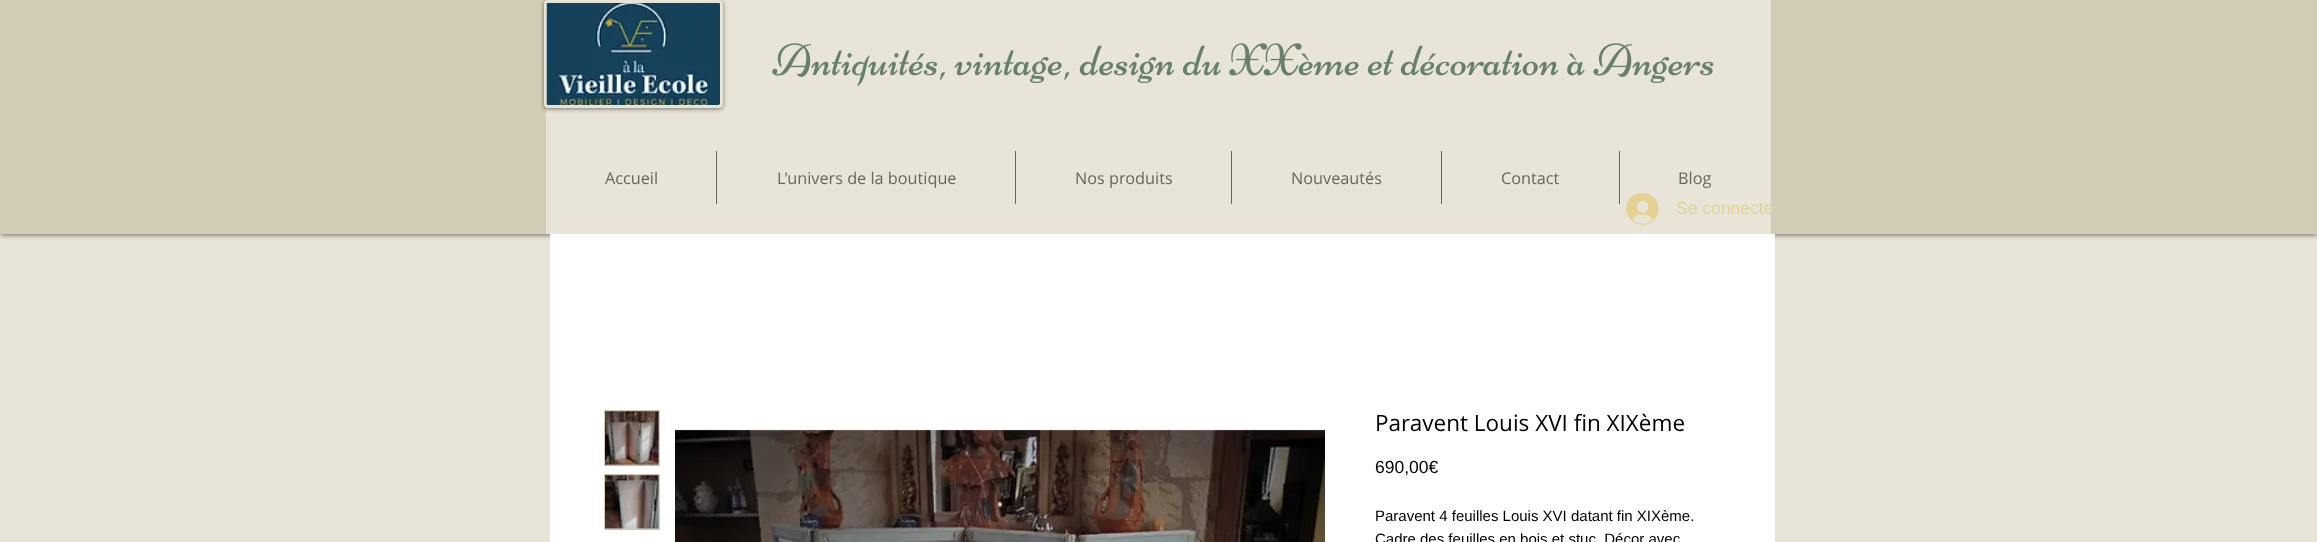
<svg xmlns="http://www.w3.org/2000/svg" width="2317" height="542">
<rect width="100%" height="100%" fill="#e8e5d8"/>
<rect width="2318" height="234" fill="#000000b3" filter="blur(3px)"/>
<rect width="2317" height="234" fill="#d1ccb5"/>
<rect x="546" width="1225" height="234" fill="#e8e5d8"/>
<rect x="544" y="1" width="179" height="108" rx="4" fill="#00000080" filter="blur(2px)"/>
<rect x="545.5" y="1.5" width="176" height="105" rx="2.5" fill="#e8e5d8" stroke="#e8e5d8" stroke-width="3"/>
<image x="546" y="2" width="174" height="103" href="media/1.png"/>
<image x="772" y="43" width="942" height="43" href="media/2.png"/>
<text x="605" y="184" style="font-family:Open Sans;font-size:16.25px;fill:#68665a">Accueil</text>
<rect x="716" y="151" width="1" height="53" fill="#68665a"/>
<text x="777" y="184" style="font-family:Open Sans;font-size:16.25px;fill:#68665a">L'univers de la boutique</text>
<rect x="1015" y="151" width="1" height="53" fill="#68665a"/>
<text x="1075" y="184" style="font-family:Open Sans;font-size:16.25px;fill:#68665a">Nos produits</text>
<rect x="1231" y="151" width="1" height="53" fill="#68665a"/>
<text x="1291" y="184" style="font-family:Open Sans;font-size:16.25px;fill:#68665a">Nouveautés</text>
<rect x="1441" y="151" width="1" height="53" fill="#68665a"/>
<text x="1501" y="184" style="font-family:Open Sans;font-size:16.25px;fill:#68665a">Contact</text>
<rect x="1619" y="151" width="1" height="53" fill="#68665a"/>
<text x="1678" y="184" style="font-family:Open Sans;font-size:16.25px;fill:#68665a">Blog</text>
<image x="1626" y="193" width="33" height="32" href="media/3.png"/>
<text x="1676" y="214" style="font-family:Liberation Sans;font-size:17.5px;fill:#e5d194">Se connecte</text>
<rect x="550" y="234" width="1225" height="308" fill="#fff"/>
<rect x="604" y="410" width="56" height="56" fill="#d1ccb5"/>
<image x="605" y="411" width="54" height="55" href="media/4.png"/>
<rect x="604" y="474" width="56" height="56" fill="#d1ccb5"/>
<image x="605" y="474" width="54" height="56" href="media/5.png"/>
<image x="675" y="429" width="650" height="113" href="media/6.png"/>
<text x="1375" y="431" style="font-family:Open Sans;font-size:22.5px;fill:#000">Paravent Louis XVI fin XIXème</text>
<text x="1375" y="473" style="font-family:Liberation Sans;font-size:17.5px;fill:#000">690,00€</text>
<text x="1375" y="521" style="font-family:Liberation Sans;font-size:15px;fill:#000">Paravent 4 feuilles Louis XVI datant fin XIXème.</text>
<text x="1375" y="544" style="font-family:Liberation Sans;font-size:15px;fill:#000">Cadre des feuilles en bois et stuc. Décor avec</text>
</svg>
